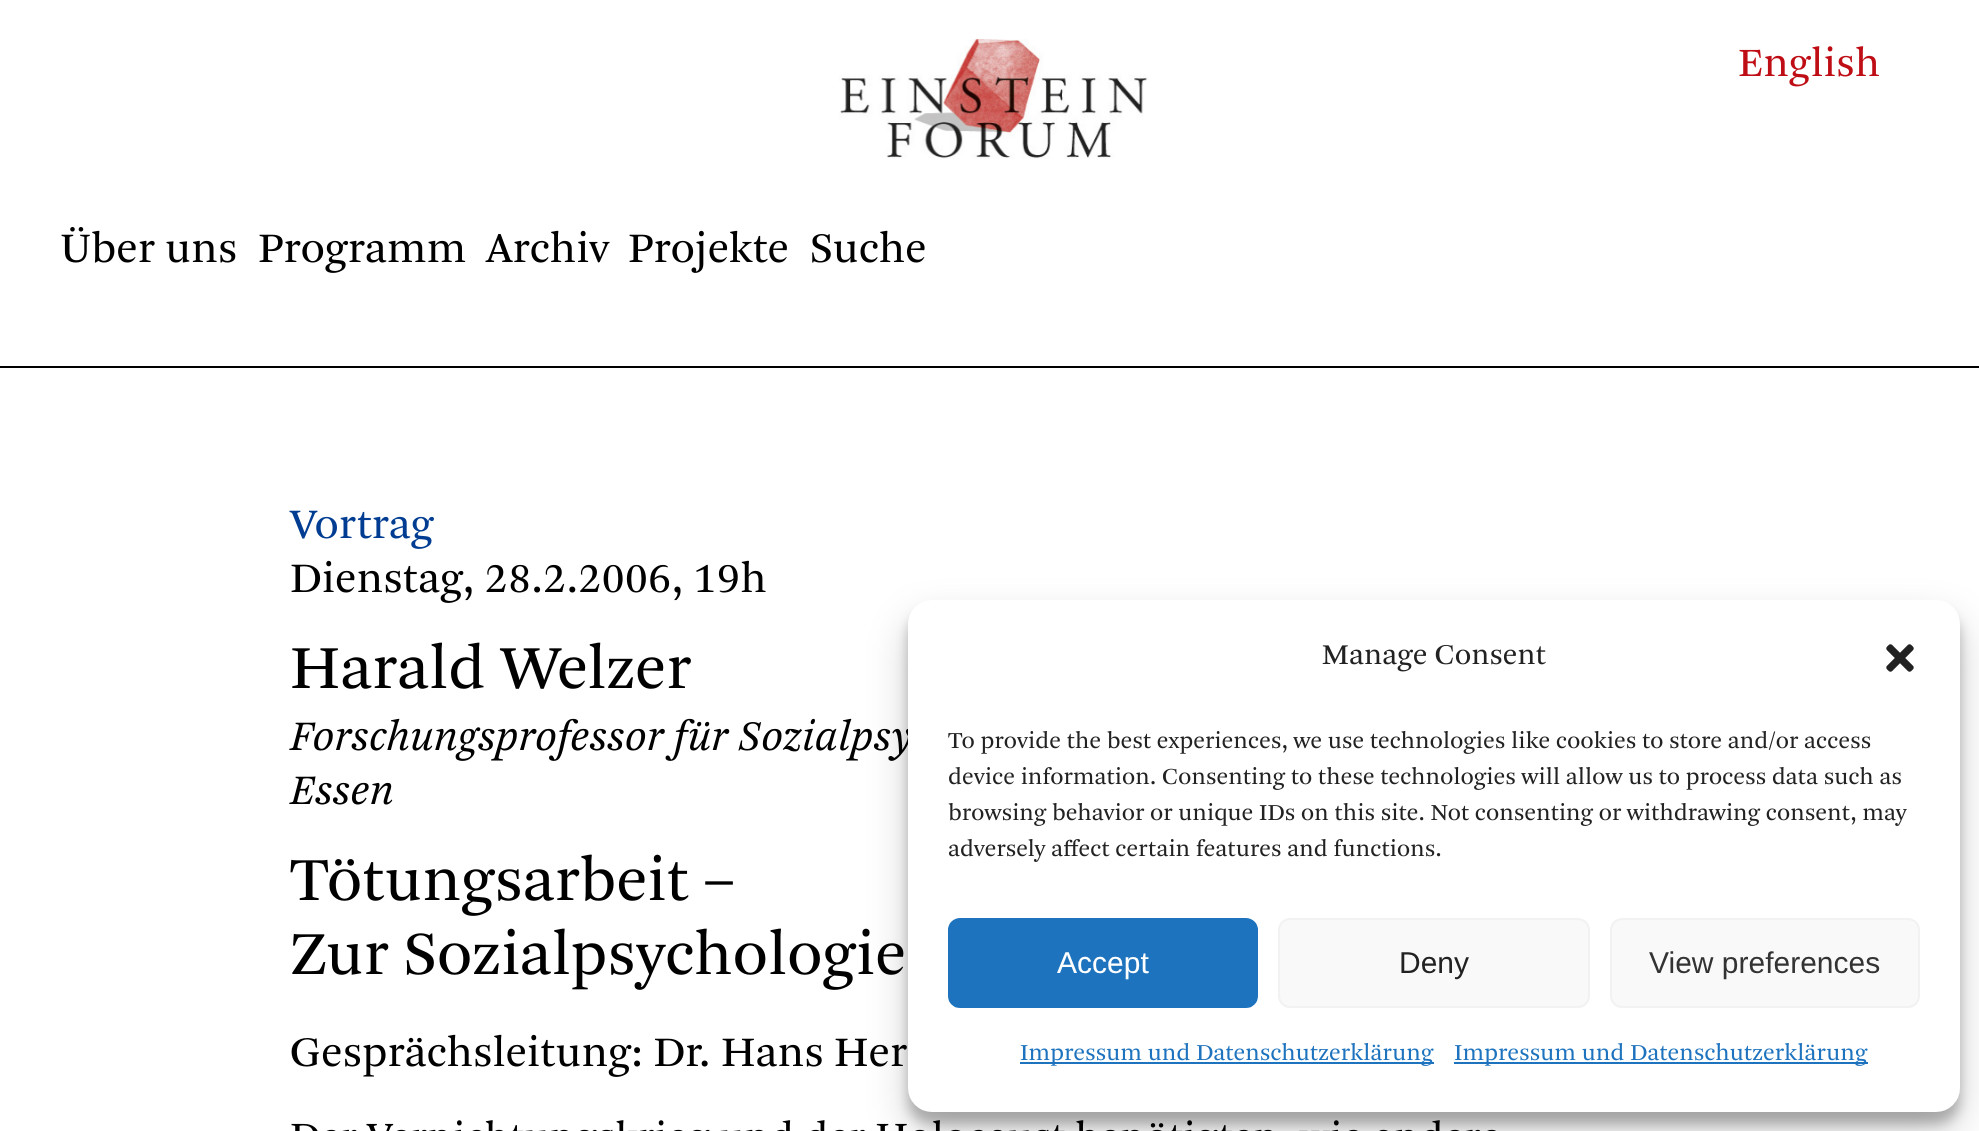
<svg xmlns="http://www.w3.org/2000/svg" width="1979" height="1131">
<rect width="100%" height="100%" fill="#fff"/>
<rect y="366" width="1979" height="2" fill="#000"/>
<image x="839" y="39" width="309" height="120" href="media/1.png"/>
<image x="61" y="227" width="175" height="36" href="media/2.png"/>
<image x="259" y="234" width="207" height="39" href="media/3.png"/>
<image x="485" y="230" width="125" height="33" href="media/4.png"/>
<image x="629" y="230" width="158" height="43" href="media/5.png"/>
<image x="812" y="230" width="113" height="33" href="media/6.png"/>
<image x="1739" y="46" width="140" height="41" href="media/7.png"/>
<image x="289" y="510" width="145" height="39" href="media/8.png"/>
<image x="291" y="560" width="475" height="43" href="media/9.png"/>
<image x="292" y="642" width="399" height="47" href="media/10.png"/>
<image x="289" y="718" width="619" height="43" href="media/11.png"/>
<image x="289" y="776" width="104" height="29" href="media/12.png"/>
<image x="290" y="854" width="443" height="62" href="media/13.png"/>
<image x="292" y="928" width="612" height="62" href="media/14.png"/>
<image x="291" y="1034" width="616" height="43" href="media/15.png"/>
<image x="291" y="1120" width="1205" height="11" href="media/16.png"/>
<rect x="908" y="612" width="1052" height="512" rx="24" fill="#0000003b" filter="blur(6px)"/>
<rect x="908" y="620" width="1052" height="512" rx="24" fill="#00000030" filter="blur(20px)"/>
<rect x="908" y="600" width="1052" height="512" rx="24" fill="#fff"/>
<image x="1322" y="644" width="224" height="28" href="media/17.png"/>
<image x="1886" y="644" width="28" height="28" href="media/18.png"/>
<image x="948" y="731" width="923" height="23" href="media/19.png"/>
<image x="949" y="767" width="952" height="23" href="media/20.png"/>
<image x="948" y="803" width="959" height="23" href="media/21.png"/>
<image x="949" y="839" width="492" height="23" href="media/22.png"/>
<rect x="949" y="919" width="308" height="88" rx="11" fill="#1e73be" stroke="#1e73be" stroke-width="2"/>
<text x="1057" y="973" style="font-family:Liberation Sans;font-size:30px;fill:#fff">Accept</text>
<rect x="1279" y="919" width="310" height="88" rx="11" fill="#f9f9f9" stroke="#f2f2f2" stroke-width="2"/>
<text x="1399" y="973" style="font-family:Liberation Sans;font-size:30px;fill:#222">Deny</text>
<rect x="1611" y="919" width="308" height="88" rx="11" fill="#f9f9f9" stroke="#f2f2f2" stroke-width="2"/>
<text x="1649" y="973" style="font-family:Liberation Sans;font-size:30px;fill:#333">View preferences</text>
<rect x="1020" y="1062" width="414" height="2" fill="#1e73be"/>
<image x="1020" y="1043" width="414" height="23" href="media/23.png"/>
<rect x="1454" y="1062" width="414" height="2" fill="#1e73be"/>
<image x="1454" y="1043" width="414" height="23" href="media/23.png"/>
</svg>
